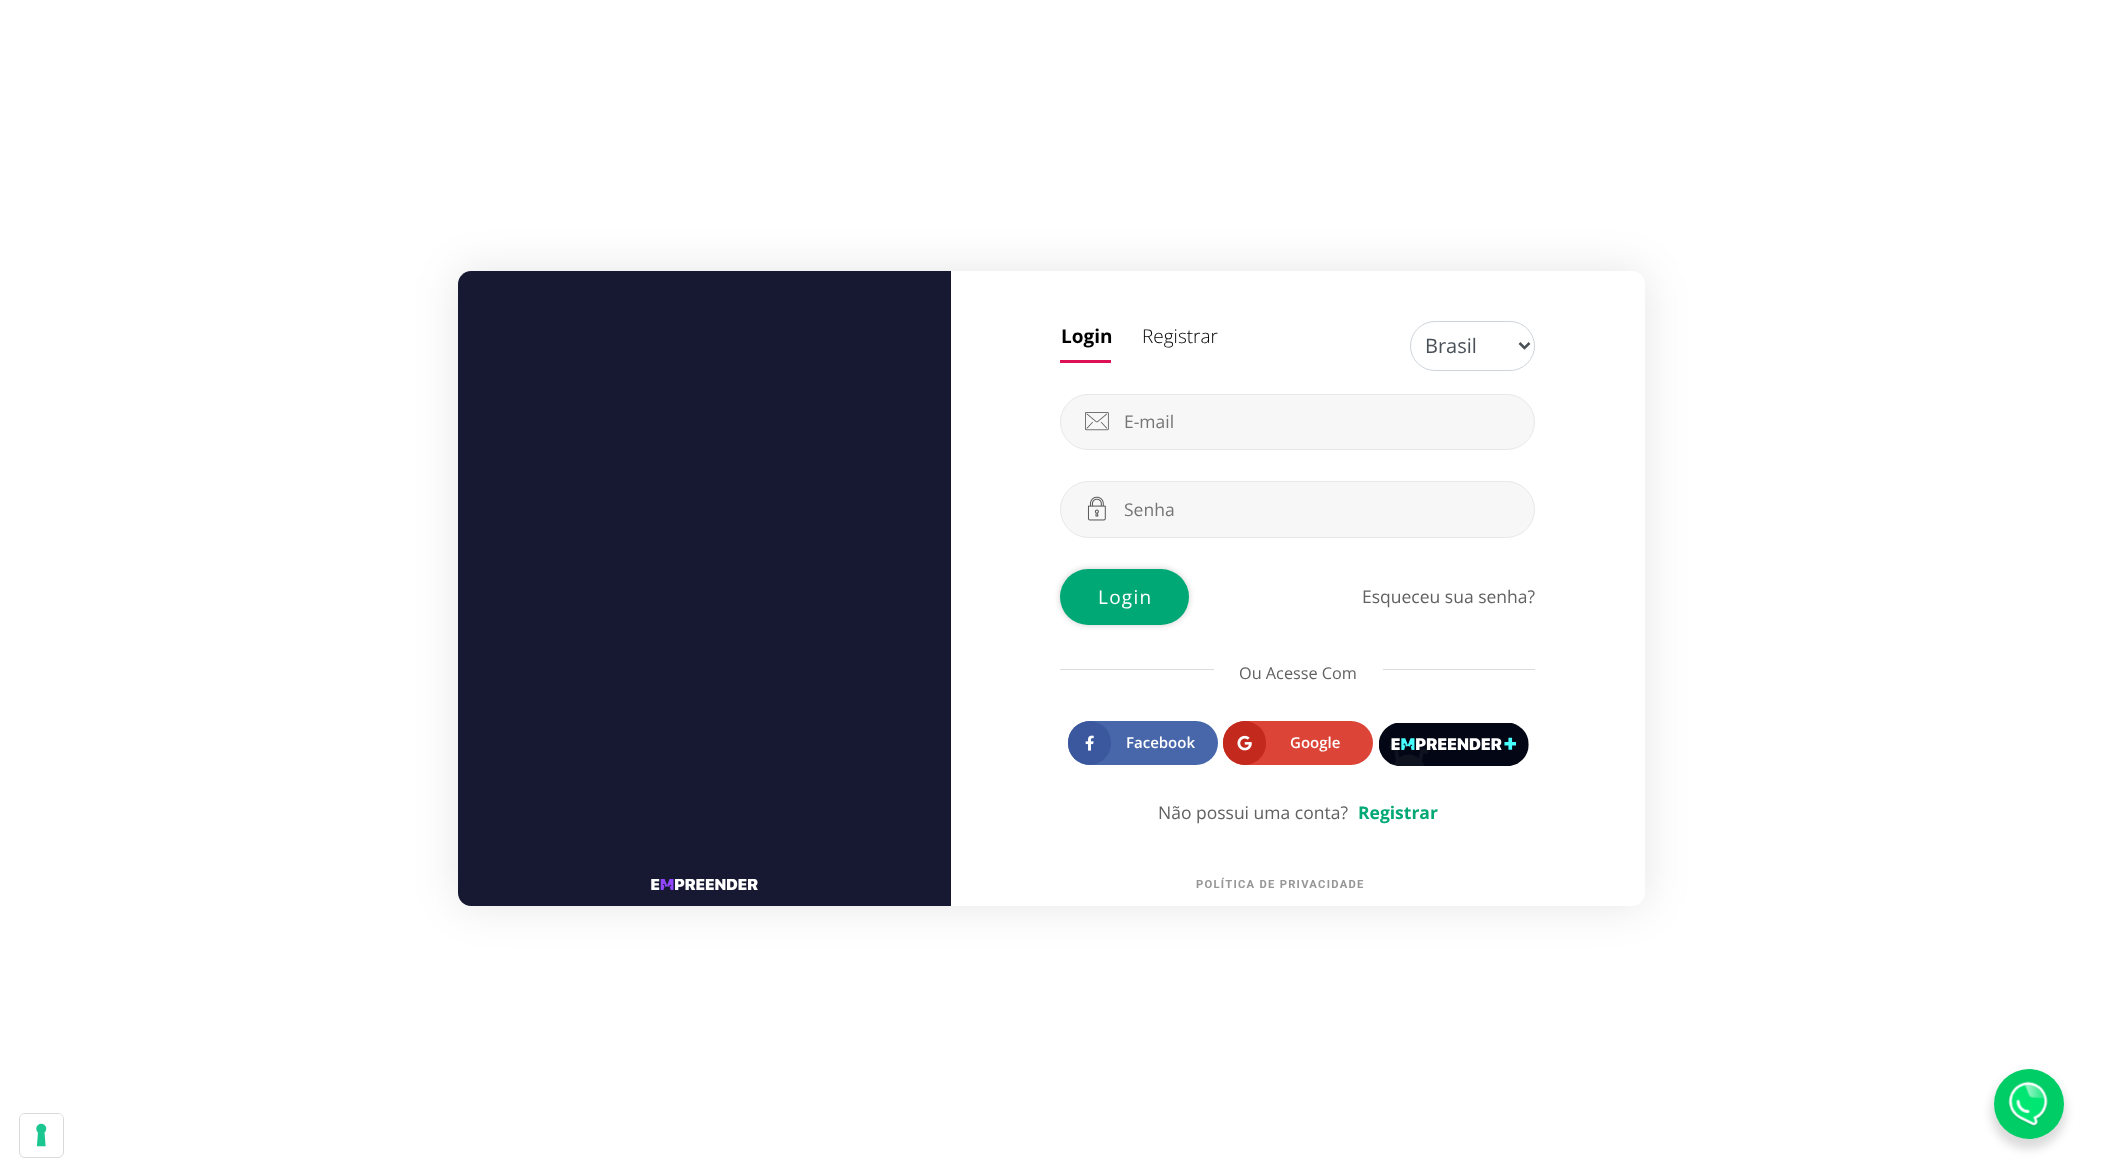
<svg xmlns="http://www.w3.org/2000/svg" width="2101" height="1176">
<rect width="100%" height="100%" fill="#fff"/>
<rect x="458" y="271" width="1187" height="635" rx="13" fill="#0000001a" filter="blur(22px)"/>
<rect x="458" y="271" width="1187" height="635" rx="13" fill="#fff"/>
<path d="M471 271h480v635h-480c-7 0-13-6-13-13v-609c0-7 6-13 13-13z" fill="#161931"/>
<image x="651" y="879" width="107" height="11" href="media/1.png"/>
<text x="1061" y="343" style="font-family:Open Sans;font-size:19px;font-weight:bold;fill:#000">Login</text>
<rect x="1060" y="360" width="51" height="3" fill="#d15"/>
<text x="1142" y="343" style="font-family:Open Sans;font-size:19px;font-weight:300;fill:#000">Registrar</text>
<rect x="1410.5" y="321.5" width="124" height="49" rx="24.5" fill="none" stroke="#ced4da"/>
<path d="M1519.5 343l5 5l5-5" fill="none" stroke="#495057" stroke-width="2.5"/>
<text x="1425" y="353" style="font-family:Open Sans;font-size:20px;fill:#495057">Brasil</text>
<rect x="1060.5" y="394.5" width="474" height="55" rx="27.5" fill="#f7f7f7" stroke="#e8e8e8"/>
<image x="1085" y="412" width="24" height="19" href="media/2.png"/>
<text x="1124" y="428" style="font-family:Open Sans;font-size:17.5px;fill:#757575">E-mail</text>
<rect x="1060.5" y="481.5" width="474" height="56" rx="28" fill="#f7f7f7" stroke="#e8e8e8"/>
<image x="1087" y="496" width="19" height="25" href="media/3.png"/>
<text x="1124" y="516" style="font-family:Open Sans;font-size:17.5px;fill:#757575">Senha</text>
<rect x="1060" y="569" width="129" height="56" rx="28" fill="#00000033" filter="blur(3px)"/>
<rect x="1060" y="569" width="129" height="56" rx="28" fill="#00a875"/>
<text x="1098" y="604" style="font-family:Open Sans;font-size:19px;letter-spacing:1.25px;fill:#fff">Login</text>
<text x="1362" y="603" style="font-family:Open Sans;font-size:17.5px;fill:#616161">Esqueceu sua senha?</text>
<rect x="1060" y="669" width="475" height="1" fill="#d8dcdc"/>
<rect x="1214" y="669" width="169" height="1" fill="#fff"/>
<text x="1239" y="679" style="font-family:Open Sans;font-size:16.25px;fill:#616161">Ou Acesse Com</text>
<rect x="1068" y="721" width="150" height="44" rx="22" fill="#4867aa"/>
<rect x="1068" y="721" width="43" height="44" rx="21.5" fill="#3b589e"/>
<image x="1085" y="735" width="9" height="16" href="media/4.png"/>
<text x="1126" y="748" style="font-family:Open Sans;font-size:15px;font-weight:600;fill:#fff">Facebook</text>
<rect x="1223" y="721" width="150" height="44" rx="22" fill="#db4437"/>
<rect x="1223" y="721" width="43" height="44" rx="21.5" fill="#c3291c"/>
<image x="1237" y="735" width="15" height="16" href="media/5.png"/>
<text x="1290" y="748" style="font-family:Open Sans;font-size:15px;font-weight:600;fill:#fff">Google</text>
<image x="1379" y="723" width="150" height="43" href="media/6.png"/>
<text x="1158" y="819" style="font-family:Open Sans;font-size:17.5px;fill:#616161">Não possui uma conta?</text>
<text x="1358" y="819" style="font-family:Open Sans;font-size:17.5px;font-weight:bold;fill:#00a875">Registrar</text>
<text x="1196" y="888" style="font-family:Roboto;font-size:11.25px;font-weight:bold;letter-spacing:1.25px;fill:#979797">POLÍTICA DE PRIVACIDADE</text>
<rect x="19.5" y="1113.5" width="44" height="44" rx="5.5" fill="none" stroke="#d9d9d9"/>
<rect x="20" y="1114" width="43" height="42" rx="5" fill="#fff"/>
<image x="36" y="1123" width="11" height="24" href="media/7.png"/>
<rect x="1991" y="1074" width="75" height="75" rx="37.5" fill="#00000024" filter="blur(5px)"/>
<circle cx="2029" cy="1104" r="35" fill="#00cd66"/>
<image x="2008" y="1081" width="40" height="46" href="media/8.png"/>
</svg>
